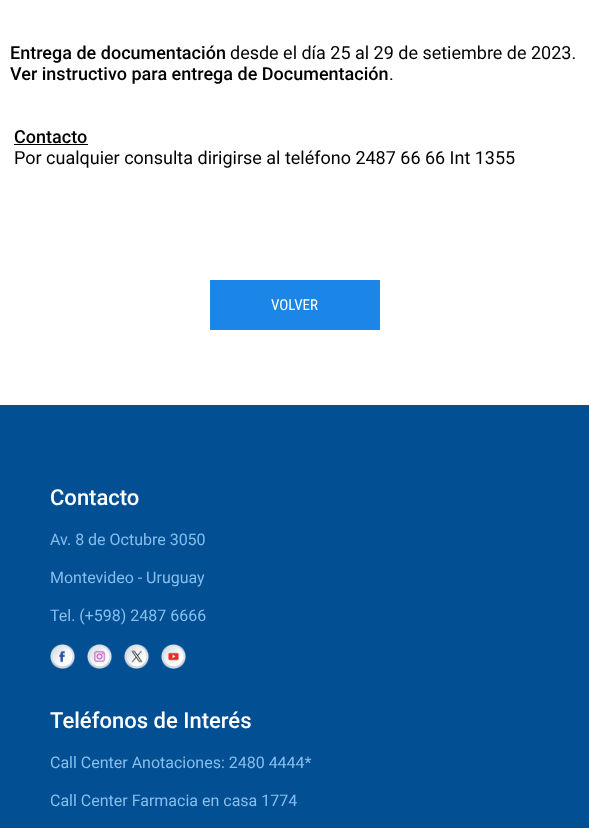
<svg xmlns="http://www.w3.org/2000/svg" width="589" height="828">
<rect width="100%" height="100%" fill="#fff"/>
<text x="10" y="59" style="font-family:Roboto;font-size:18px;font-weight:500;fill:#000">Entrega de documentación</text>
<text x="230" y="59" style="font-family:Roboto;font-size:18px;fill:#000">desde el día 25 al 29 de setiembre de 2023.</text>
<text x="10" y="80" style="font-family:Roboto;font-size:18px;font-weight:500;fill:#000">Ver instructivo para entrega de Documentación</text>
<text x="389" y="80" style="font-family:Roboto;font-size:18px;fill:#000">.</text>
<text x="14" y="143" style="font-family:Roboto;font-size:18px;font-weight:500;fill:#000">Contacto</text>
<rect x="14" y="144" width="74" height="1" fill="#000"/>
<text x="14" y="164" style="font-family:Roboto;font-size:18px;fill:#000">Por cualquier consulta dirigirse al teléfono 2487 66 66 Int 1355</text>
<rect x="210" y="280" width="170" height="50" fill="#1b86e8"/>
<text x="271" y="310" style="font-family:Roboto Condensed;font-size:15px;fill:#fff">VOLVER</text>
<rect y="405" width="589" height="423" fill="#034f94"/>
<text x="50" y="505" style="font-family:Roboto;font-size:22px;font-weight:500;fill:#fff">Contacto</text>
<text x="50" y="545" style="font-family:Roboto;font-size:16px;fill:#87bfec">Av. 8 de Octubre 3050</text>
<text x="50" y="583" style="font-family:Roboto;font-size:16px;fill:#87bfec">Montevideo - Uruguay</text>
<text x="50" y="621" style="font-family:Roboto;font-size:16px;fill:#87bfec">Tel. (+598) 2487 6666</text>
<image x="50" y="644" width="25" height="25" href="media/1.png"/>
<image x="87" y="644" width="25" height="25" href="media/2.png"/>
<image x="124" y="644" width="25" height="25" href="media/3.png"/>
<image x="161" y="644" width="25" height="25" href="media/4.png"/>
<text x="50" y="728" style="font-family:Roboto;font-size:22px;font-weight:500;fill:#fff">Teléfonos de Interés</text>
<text x="50" y="768" style="font-family:Roboto;font-size:16px;fill:#87bfec">Call Center Anotaciones: 2480 4444*</text>
<text x="50" y="806" style="font-family:Roboto;font-size:16px;fill:#87bfec">Call Center Farmacia en casa 1774</text>
</svg>
